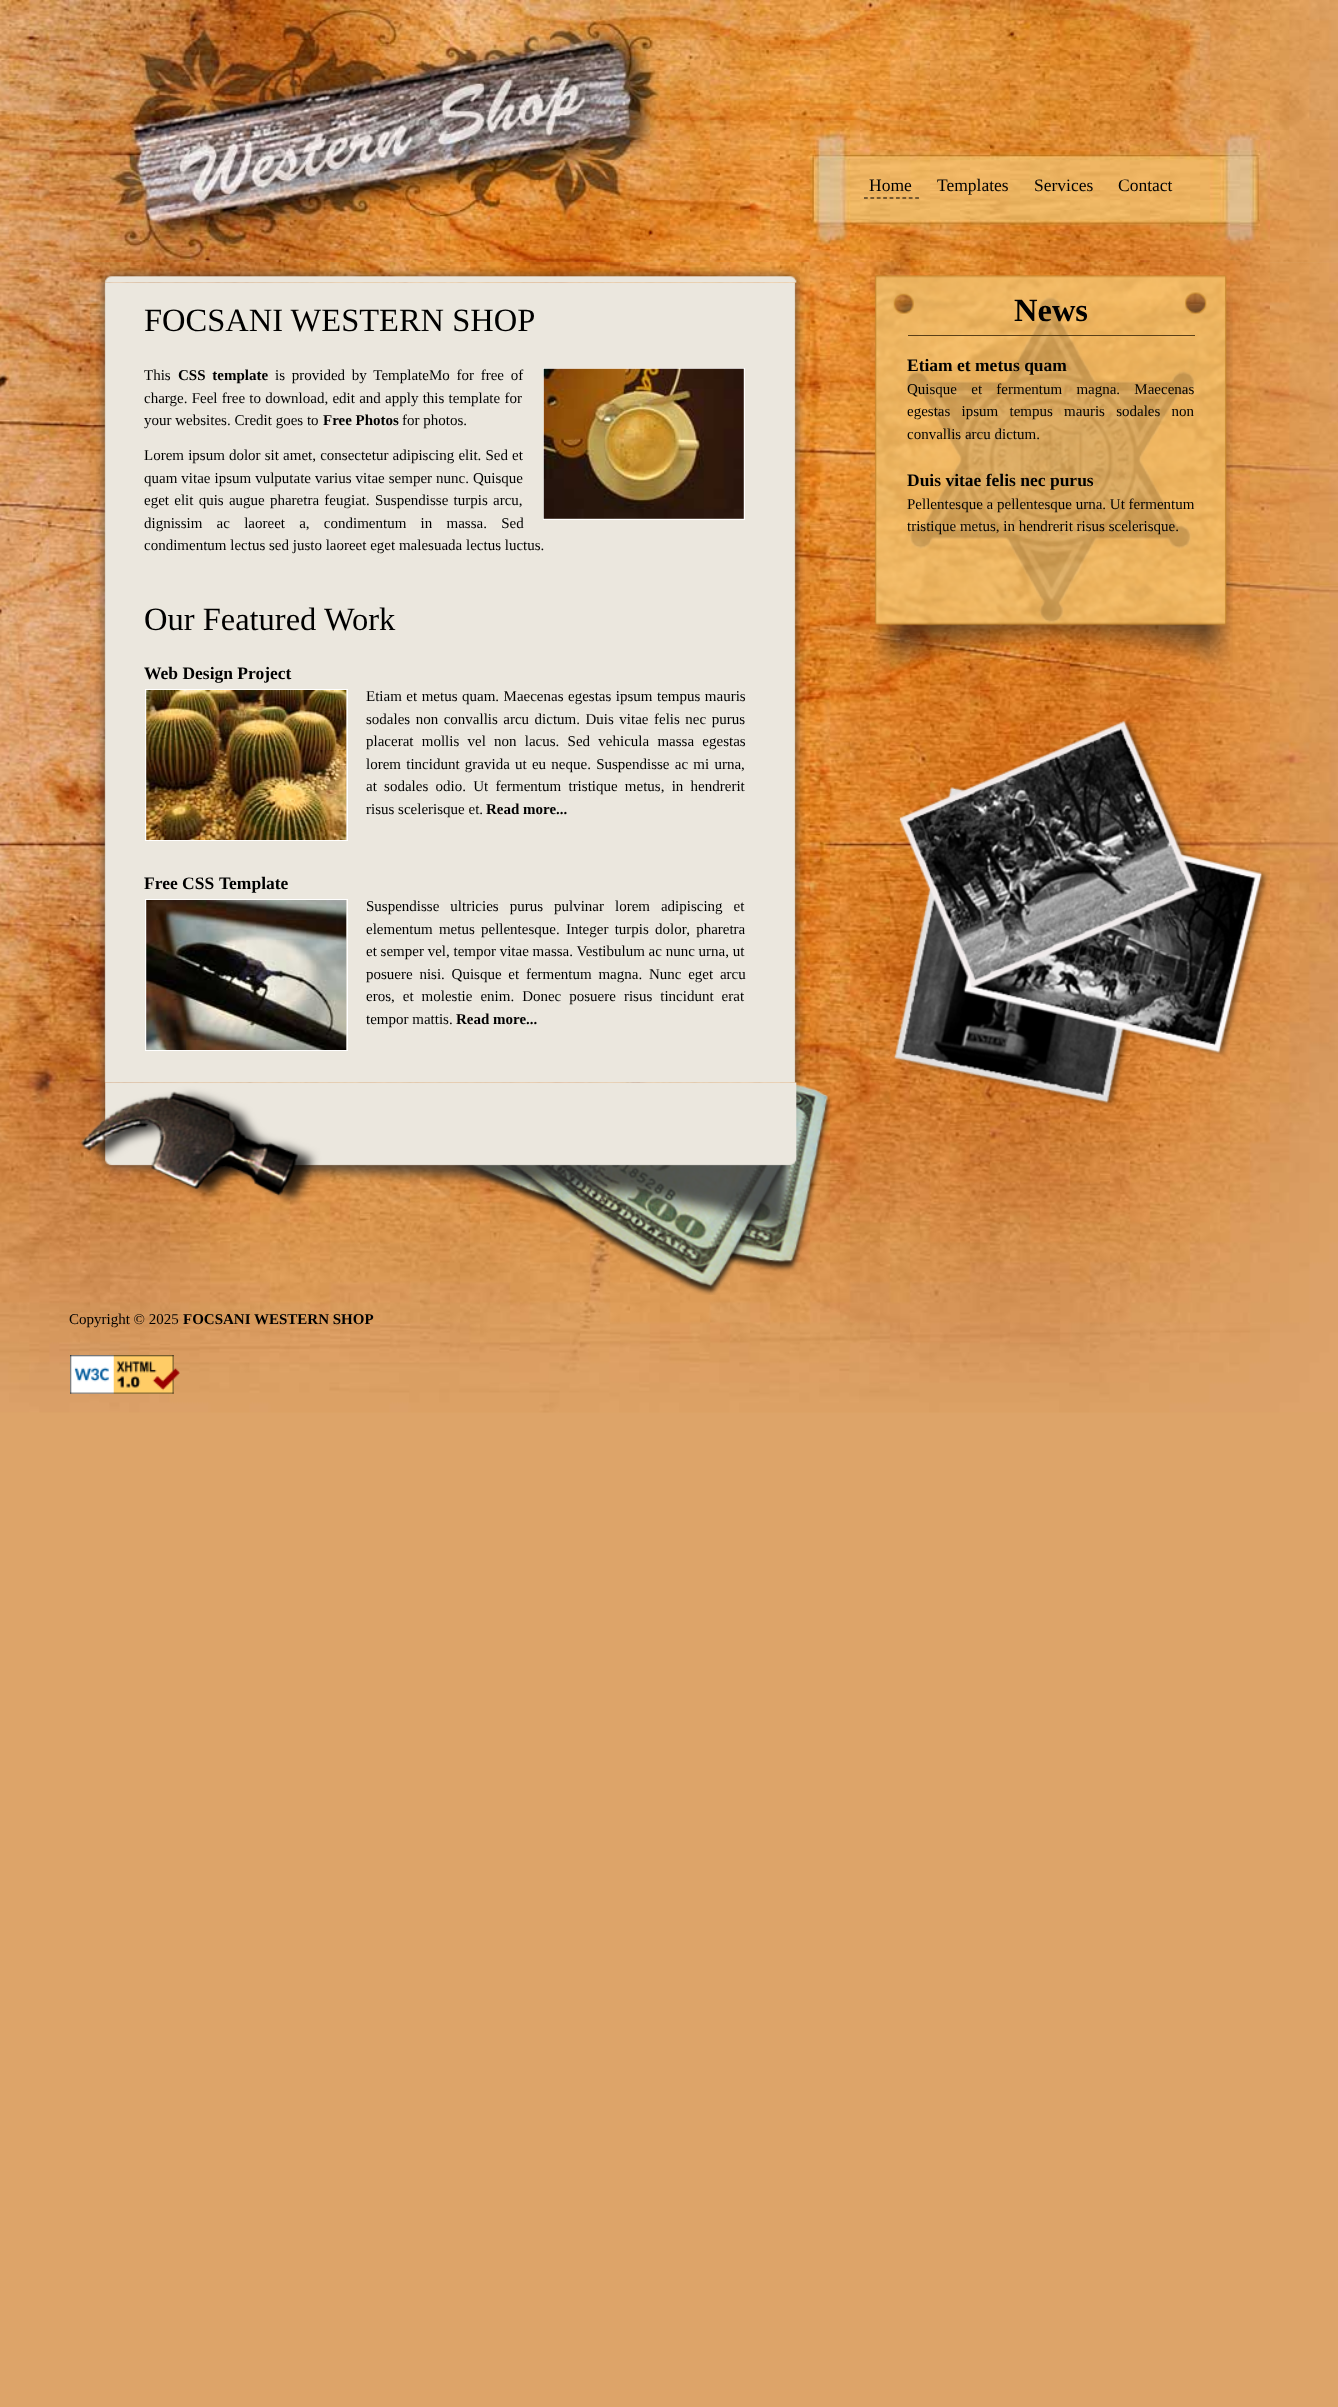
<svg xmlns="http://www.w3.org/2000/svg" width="1338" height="2407">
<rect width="100%" height="100%" fill="#dda469"/>
<image x="0" y="0" width="1338" height="263" href="media/1.png"/>
<image x="70" y="0" width="1200" height="263" href="media/2.png"/>
<path d="M864 198h55" fill="none" stroke="#000" stroke-width="1.2" stroke-dasharray="3.75 2.65"/>
<text x="869" y="191" style="font-family:Liberation Serif;font-size:17.5px;fill:#000">Home</text>
<text x="937" y="191" style="font-family:Liberation Serif;font-size:17.5px;fill:#000">Templates</text>
<text x="1034" y="191" style="font-family:Liberation Serif;font-size:17.5px;fill:#000">Services</text>
<text x="1118" y="191" style="font-family:Liberation Serif;font-size:17.5px;fill:#000">Contact</text>
<image x="0" y="262" width="1338" height="1151" href="media/3.png"/>
<image x="70" y="262" width="1200" height="1085" href="media/4.png"/>
<image x="96" y="282" width="709" height="801" href="media/5.png"/>
<image x="97" y="267" width="708" height="16" href="media/6.png"/>
<text x="144" y="331" style="font-family:Liberation Serif;font-size:32.5px;fill:#000">FOCSANI WESTERN SHOP</text>
<text x="144" y="380" style="font-family:Liberation Serif;font-size:15px;fill:#000">This</text>
<text x="178" y="380" word-spacing="3" style="font-family:Liberation Serif;font-size:15px;font-weight:bold;fill:#000">CSS template</text>
<text x="275" y="380" word-spacing="3" style="font-family:Liberation Serif;font-size:15px;fill:#000">is provided by TemplateMo for free of</text>
<text x="144" y="403" word-spacing="0.5" style="font-family:Liberation Serif;font-size:15px;fill:#000">charge. Feel free to download, edit and apply this template for</text>
<text x="144" y="425" style="font-family:Liberation Serif;font-size:15px;fill:#000">your websites. Credit goes to</text>
<text x="323" y="425" style="font-family:Liberation Serif;font-size:15px;font-weight:bold;fill:#000">Free Photos</text>
<text x="402" y="425" style="font-family:Liberation Serif;font-size:15px;fill:#000">for photos.</text>
<rect x="543.5" y="368.5" width="201" height="151" fill="none" stroke="#fff"/>
<image x="543" y="368" width="201" height="151" href="media/7.png"/>
<text x="144" y="460" word-spacing="0.4" style="font-family:Liberation Serif;font-size:15px;fill:#000">Lorem ipsum dolor sit amet, consectetur adipiscing elit. Sed et</text>
<text x="144" y="483" word-spacing="0.25" style="font-family:Liberation Serif;font-size:15px;fill:#000">quam vitae ipsum vulputate varius vitae semper nunc. Quisque</text>
<text x="144" y="505" word-spacing="1.5" style="font-family:Liberation Serif;font-size:15px;fill:#000">eget elit quis augue pharetra feugiat. Suspendisse turpis arcu,</text>
<text x="144" y="528" word-spacing="10.5" style="font-family:Liberation Serif;font-size:15px;fill:#000">dignissim ac laoreet a, condimentum in massa. Sed</text>
<text x="144" y="550" style="font-family:Liberation Serif;font-size:15px;fill:#000">condimentum lectus sed justo laoreet eget malesuada lectus luctus.</text>
<text x="144" y="630" style="font-family:Liberation Serif;font-size:32.5px;fill:#000">Our Featured Work</text>
<text x="144" y="679" style="font-family:Liberation Serif;font-size:17.5px;font-weight:bold;fill:#000">Web Design Project</text>
<rect x="145.5" y="689.5" width="202" height="151" fill="none" stroke="#fff"/>
<image x="146" y="690" width="201" height="150" href="media/8.png"/>
<text x="366" y="701" word-spacing="0.75" style="font-family:Liberation Serif;font-size:15px;fill:#000">Etiam et metus quam. Maecenas egestas ipsum tempus mauris</text>
<text x="366" y="724" word-spacing="1.75" style="font-family:Liberation Serif;font-size:15px;fill:#000">sodales non convallis arcu dictum. Duis vitae felis nec purus</text>
<text x="366" y="746" word-spacing="4.5" style="font-family:Liberation Serif;font-size:15px;fill:#000">placerat mollis vel non lacus. Sed vehicula massa egestas</text>
<text x="366" y="769" word-spacing="1.5" style="font-family:Liberation Serif;font-size:15px;fill:#000">lorem tincidunt gravida ut eu neque. Suspendisse ac mi urna,</text>
<text x="366" y="791" word-spacing="3.5" style="font-family:Liberation Serif;font-size:15px;fill:#000">at sodales odio. Ut fermentum tristique metus, in hendrerit</text>
<text x="366" y="814" style="font-family:Liberation Serif;font-size:15px;fill:#000">risus scelerisque et.</text>
<text x="486" y="814" style="font-family:Liberation Serif;font-size:15px;font-weight:bold;fill:#000">Read more...</text>
<text x="144" y="889" style="font-family:Liberation Serif;font-size:17.5px;font-weight:bold;fill:#000">Free CSS</text>
<text x="219" y="889" style="font-family:Liberation Serif;font-size:17.5px;font-weight:bold;fill:#000">Template</text>
<rect x="145.5" y="899.5" width="202" height="151" fill="none" stroke="#fff"/>
<image x="146" y="900" width="201" height="150" href="media/9.png"/>
<text x="366" y="911" word-spacing="7.25" style="font-family:Liberation Serif;font-size:15px;fill:#000">Suspendisse ultricies purus pulvinar lorem adipiscing et</text>
<text x="366" y="934" word-spacing="2.5" style="font-family:Liberation Serif;font-size:15px;fill:#000">elementum metus pellentesque. Integer turpis dolor, pharetra</text>
<text x="366" y="956" style="font-family:Liberation Serif;font-size:15px;fill:#000">et semper vel, tempor vitae massa. Vestibulum ac nunc urna, ut</text>
<text x="366" y="979" word-spacing="3" style="font-family:Liberation Serif;font-size:15px;fill:#000">posuere nisi. Quisque et fermentum magna. Nunc eget arcu</text>
<text x="366" y="1001" word-spacing="4.25" style="font-family:Liberation Serif;font-size:15px;fill:#000">eros, et molestie enim. Donec posuere risus tincidunt erat</text>
<text x="366" y="1024" style="font-family:Liberation Serif;font-size:15px;fill:#000">tempor mattis.</text>
<text x="456" y="1024" style="font-family:Liberation Serif;font-size:15px;font-weight:bold;fill:#000">Read more...</text>
<image x="80" y="1082" width="752" height="213" href="media/10.png"/>
<image x="893" y="720" width="376" height="387" href="media/11.png"/>
<image x="873" y="275" width="360" height="398" href="media/12.png"/>
<rect x="908" y="335" width="287" height="1" fill="#5a4018"/>
<text x="1014" y="321" style="font-family:Liberation Serif;font-size:32.5px;font-weight:bold;fill:#000">News</text>
<text x="907" y="371" style="font-family:Liberation Serif;font-size:17.5px;font-weight:bold;fill:#000">Etiam et metus quam</text>
<text x="907" y="394" word-spacing="10.5" style="font-family:Liberation Serif;font-size:15px;fill:#000">Quisque et fermentum magna. Maecenas</text>
<text x="907" y="416" word-spacing="7.5" style="font-family:Liberation Serif;font-size:15px;fill:#000">egestas ipsum tempus mauris sodales non</text>
<text x="907" y="439" style="font-family:Liberation Serif;font-size:15px;fill:#000">convallis arcu dictum.</text>
<text x="907" y="486" style="font-family:Liberation Serif;font-size:17.5px;font-weight:bold;fill:#000">Duis vitae felis nec purus</text>
<text x="907" y="509" style="font-family:Liberation Serif;font-size:15px;fill:#000">Pellentesque a pellentesque urna. Ut fermentum</text>
<text x="907" y="531" style="font-family:Liberation Serif;font-size:15px;fill:#000">tristique metus, in hendrerit risus scelerisque.</text>
<text x="69" y="1324" style="font-family:Liberation Serif;font-size:15px;fill:#000">Copyright © 2025</text>
<text x="183" y="1324" style="font-family:Liberation Serif;font-size:15px;font-weight:bold;fill:#000">FOCSANI WESTERN SHOP</text>
<image x="70" y="1355" width="110" height="39" href="media/13.png"/>
</svg>
